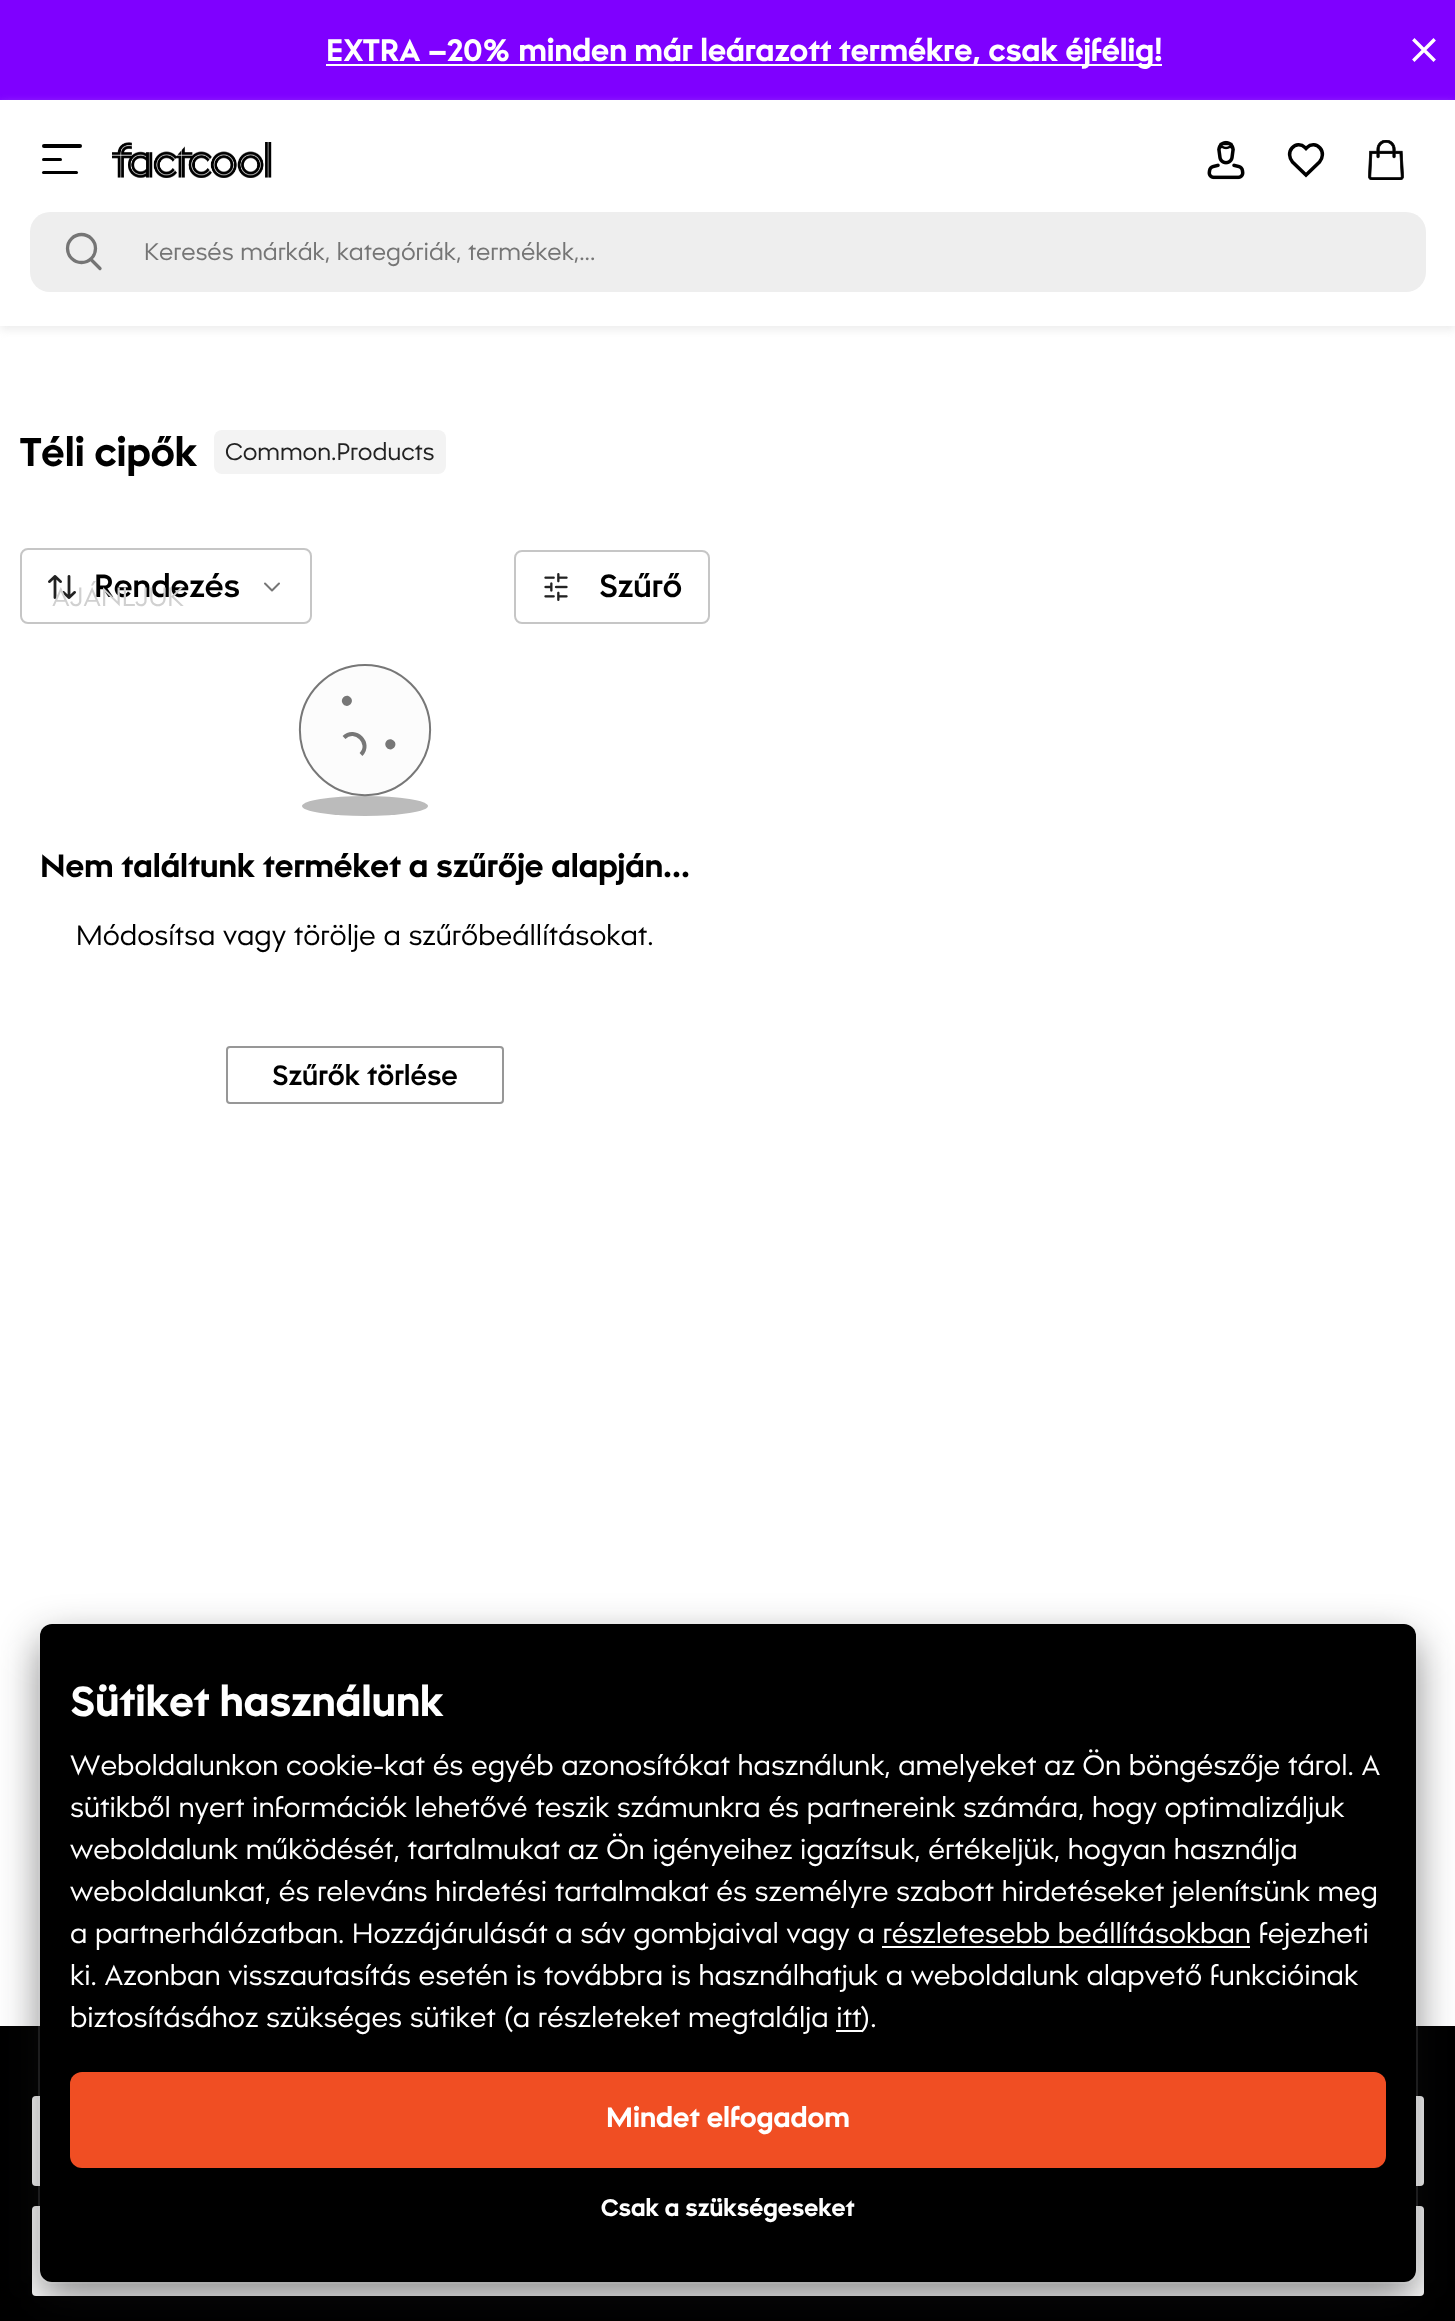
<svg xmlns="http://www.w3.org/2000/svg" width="1455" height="2321">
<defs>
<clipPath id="clip1"><path d="M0 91h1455v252h-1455zm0 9h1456v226h-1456z" clip-rule="evenodd"/></clipPath>
</defs>
<rect width="100%" height="100%" fill="#fff"/>
<rect width="1455" height="100" fill="#7f00ff"/>
<rect x="326" y="64" width="836" height="2" fill="#fff"/>
<text x="326" y="61" style="font-family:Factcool;font-size:31px;font-weight:bold;fill:#fff">EXTRA –20% minden már leárazott termékre, csak éjfélig!</text>
<path d="M1433.5 40.5l-19 19m0-19l19 19" fill="none" stroke="#fff" stroke-width="3.4" stroke-linecap="square"/>
<g clip-path="url(#clip1)">
<rect y="104" width="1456" height="226" fill="#dcdcdc80" filter="blur(4px)"/>
</g>
<rect x="42" y="144" width="40" height="4" rx="2" fill="#000"/>
<rect x="42" y="158" width="20" height="3" rx="1.5" fill="#000"/>
<rect x="42" y="171" width="36" height="3" rx="1.5" fill="#000"/>
<image x="112" y="142" width="160" height="36" href="media/1.png"/>
<image x="1207" y="140" width="38" height="40" href="media/2.png"/>
<path d="M1306 148.5l-1-1c-4-4-9.5-3.5-13 .5c-3.5 4-3 10 .5 14l13.5 13l13.5-13c3.5-4 4-10 .5-14c-3.5-4-9-4.5-13-.5z" fill="none" stroke="#000" stroke-width="3.5" stroke-linecap="round"/>
<image x="1368" y="140" width="36" height="40" href="media/3.png"/>
<rect x="30" y="212" width="1396" height="80" rx="20" fill="#eee"/>
<circle cx="81.5" cy="248.5" r="14" fill="none" stroke="#757575" stroke-width="3.3"/>
<path d="M100 268.5l-8.5-8.5" fill="none" stroke="#757575" stroke-width="3.3" stroke-linecap="round"/>
<text x="144" y="260" style="font-family:Factcool;font-size:24px;fill:#757575">Keresés márkák, kategóriák, termékek,...</text>
<text x="20" y="466" style="font-family:Factcool;font-size:40px;font-weight:bold;fill:#000">Téli cipők</text>
<rect x="214" y="430" width="232" height="44" rx="8" fill="#f3f3f3"/>
<text x="225" y="460" style="font-family:Factcool;font-size:24px;fill:#222">Common.Products</text>
<rect x="21" y="549" width="290" height="74" rx="7" fill="none" stroke="#c6c6c6" stroke-width="2"/>
<image x="48" y="575" width="28" height="24" href="media/4.png"/>
<text x="94" y="597" style="font-family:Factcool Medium;font-size:32px;font-weight:500;fill:#000">Rendezés</text>
<path d="M279 583.5l-7 7l-7-7" fill="none" stroke="#767676" stroke-width="2" stroke-linecap="round" stroke-linejoin="round"/>
<text x="52" y="606" style="font-family:Factcool;font-size:26.5px;fill:#d0d0d0">AJÁNLJUK</text>
<rect x="515" y="551" width="194" height="72" rx="7" fill="none" stroke="#c6c6c6" stroke-width="2"/>
<image x="544" y="573" width="24" height="28" href="media/5.png"/>
<text x="599" y="597" style="font-family:Factcool Medium;font-size:32px;font-weight:500;fill:#000">Szűrő</text>
<path d="M412 683c25 26 25 68 0 94c-26 25-68 25-94 0c-25-26-25-68 0-94c26-25 68-25 94 0z" fill="#fcfcfc"/>
<ellipse cx="365" cy="806" rx="63" ry="10" fill="#bbb"/>
<path d="M411 684c25.5 25.5 25.5 66.5 0 92c-25.5 25.5-66.5 25.5-92 0c-25.5-25.5-25.5-66.5 0-92c25.5-25.5 66.5-25.5 92 0z" fill="none" stroke="#777" stroke-width="2"/>
<path d="M350.5 697.5c4.5 4.5-2.5 11.5-7 7c-5-4.5 2.5-12 7-7zm43.5 43.5c4.5 4.5-2.5 11.5-7 7c-5-5 2-12 7-7z" fill="#777"/>
<path d="M344 737.5c11-11 28 6 17 17" fill="none" stroke="#777" stroke-width="4"/>
<text x="40" y="877" style="font-family:Factcool;font-size:32px;font-weight:bold;fill:#000">Nem találtunk terméket a szűrője alapján...</text>
<text x="76" y="945" style="font-family:Factcool;font-size:28px;fill:#000">Módosítsa vagy törölje a szűrőbeállításokat.</text>
<rect x="227" y="1047" width="276" height="56" rx="3" fill="none" stroke="#979797" stroke-width="2"/>
<text x="272" y="1085" style="font-family:Factcool Medium;font-size:28px;font-weight:500;fill:#000">Szűrők törlése</text>
<rect y="2026" width="1455" height="295" fill="#000"/>
<rect x="32" y="2096" width="1392" height="90" rx="4" fill="#fff"/>
<rect x="32" y="2206" width="1392" height="90" rx="4" fill="#fff"/>
<rect x="40" y="1640" width="1376" height="658" rx="12" fill="#11111380" filter="blur(20px)"/>
<rect x="40" y="1624" width="1376" height="658" rx="12" fill="#000"/>
<rect x="39" y="1623" width="1378" height="660" rx="13" fill="none" stroke="#ffffff1a" stroke-width="2"/>
<text x="70" y="1716" style="font-family:Factcool;font-size:42px;font-weight:bold;fill:#fff">Sütiket használunk</text>
<text x="70" y="1775" style="font-family:Factcool;font-size:28px;fill:#fff">Weboldalunkon cookie-kat és egyéb azonosítókat használunk, amelyeket az Ön böngészője tárol. A</text>
<text x="70" y="1817" style="font-family:Factcool;font-size:28px;fill:#fff">sütikből nyert információk lehetővé teszik számunkra és partnereink számára, hogy optimalizáljuk</text>
<text x="70" y="1859" style="font-family:Factcool;font-size:28px;fill:#fff">weboldalunk működését, tartalmukat az Ön igényeihez igazítsuk, értékeljük, hogyan használja</text>
<text x="70" y="1901" style="font-family:Factcool;font-size:28px;fill:#fff">weboldalunkat, és releváns hirdetési tartalmakat és személyre szabott hirdetéseket jelenítsünk meg</text>
<text x="70" y="1943" style="font-family:Factcool;font-size:28px;fill:#fff">a partnerhálózatban. Hozzájárulását a sáv gombjaival vagy a részletesebb beállításokban fejezheti</text>
<rect x="882" y="1946" width="368" height="2" fill="#fff"/>
<text x="70" y="1985" style="font-family:Factcool;font-size:28px;fill:#fff">ki. Azonban visszautasítás esetén is továbbra is használhatjuk a weboldalunk alapvető funkcióinak</text>
<text x="70" y="2027" style="font-family:Factcool;font-size:28px;fill:#fff">biztosításához szükséges sütiket (a részleteket megtalálja itt</text>
<rect x="836" y="2030" width="26" height="2" fill="#fff"/>
<text x="861" y="2027" style="font-family:Factcool;font-size:28px;fill:#fff">).</text>
<rect x="70" y="2072" width="1316" height="96" rx="12" fill="#f04e23"/>
<text x="606" y="2127" style="font-family:Factcool;font-size:28px;font-weight:bold;fill:#fff">Mindet elfogadom</text>
<text x="601" y="2216" style="font-family:Factcool;font-size:24px;font-weight:bold;fill:#fff">Csak a szükségeseket</text>
</svg>
